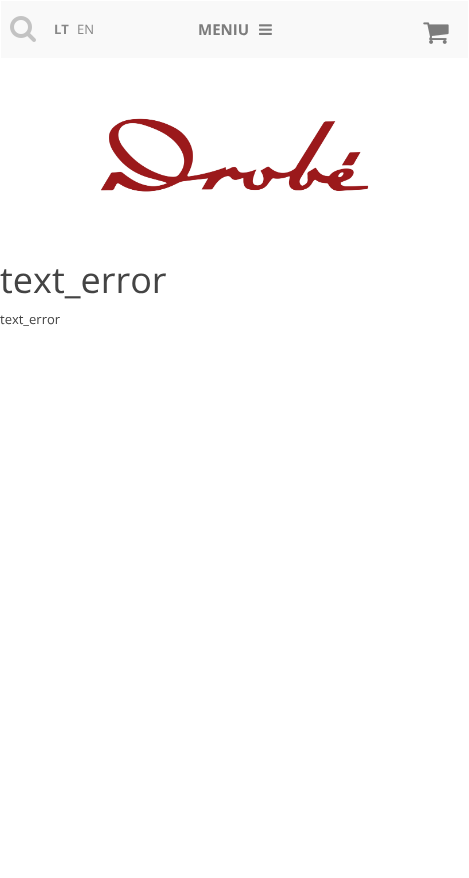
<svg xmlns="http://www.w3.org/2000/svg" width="469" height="878">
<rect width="100%" height="100%" fill="#fff"/>
<rect x="1" y="1" width="467" height="57" fill="#f9f9f9"/>
<image x="10" y="16" width="26" height="26" href="media/1.png"/>
<text x="54" y="34" style="font-family:Open Sans;font-size:13px;font-weight:bold;fill:#888">LT</text>
<text x="77" y="34" style="font-family:Open Sans;font-size:13px;fill:#888">EN</text>
<image x="423" y="22" width="26" height="22" href="media/2.png"/>
<image x="101" y="118" width="268" height="74" href="media/3.png"/>
<text x="198" y="35" style="font-family:Open Sans;font-size:15px;font-weight:bold;fill:#7c7c7c">MENIU</text>
<image x="259" y="24" width="13" height="11" href="media/4.png"/>
<text x="0" y="293" style="font-family:Open Sans;font-size:36px;fill:#444">text_error</text>
<text x="0" y="324" style="font-family:Open Sans;font-size:13px;fill:#444">text_error</text>
</svg>
